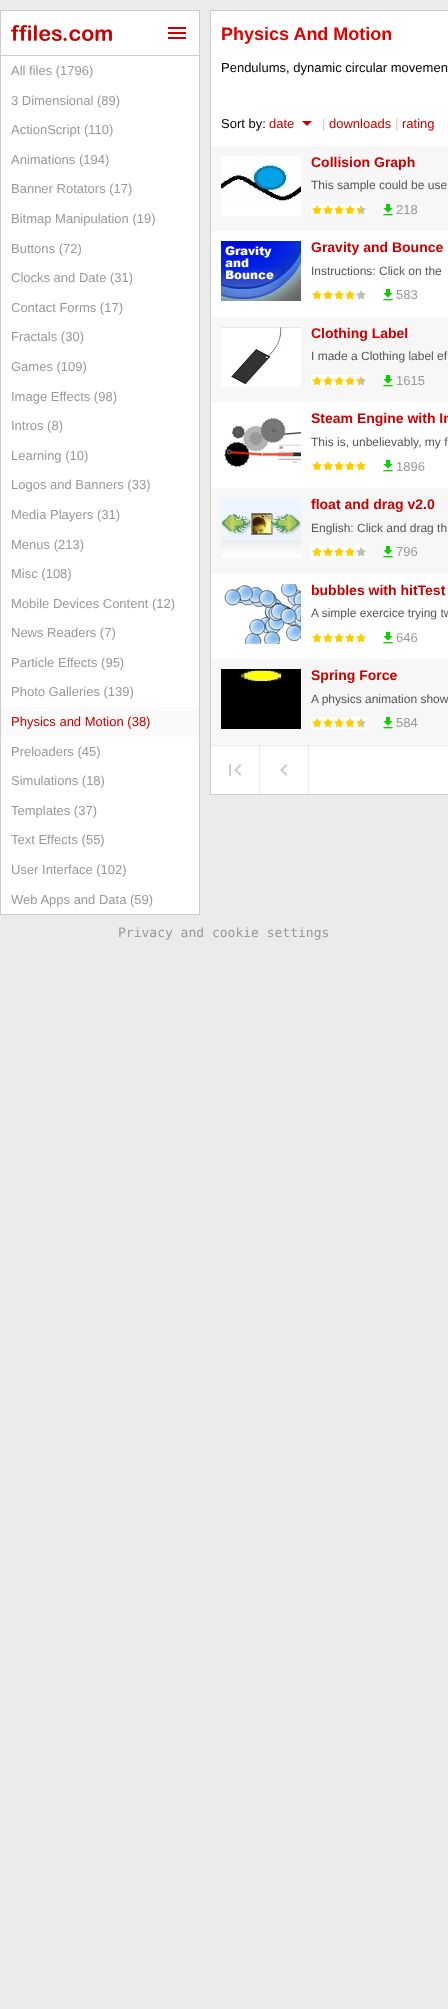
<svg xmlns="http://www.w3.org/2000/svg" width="448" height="2009">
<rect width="100%" height="100%" fill="#ebebeb"/>
<rect x="0.5" y="10.5" width="199" height="904" fill="#fff" stroke="#ccc"/>
<rect x="1" y="55" width="198" height="1" fill="#ccc"/>
<image x="11" y="25" width="101" height="16" href="media/1.png"/>
<image x="168" y="27" width="18" height="12" href="media/2.png"/>
<text x="11" y="75" style="font-family:Liberation Sans;font-size:13px;fill:#999">All files (1796)</text>
<text x="11" y="105" style="font-family:Liberation Sans;font-size:13px;fill:#999">3 Dimensional (89)</text>
<text x="11" y="134" style="font-family:Liberation Sans;font-size:13px;fill:#999">ActionScript (110)</text>
<text x="11" y="164" style="font-family:Liberation Sans;font-size:13px;fill:#999">Animations (194)</text>
<text x="11" y="193" style="font-family:Liberation Sans;font-size:13px;fill:#999">Banner Rotators (17)</text>
<text x="11" y="223" style="font-family:Liberation Sans;font-size:13px;fill:#999">Bitmap Manipulation (19)</text>
<text x="11" y="253" style="font-family:Liberation Sans;font-size:13px;fill:#999">Buttons (72)</text>
<text x="11" y="282" style="font-family:Liberation Sans;font-size:13px;fill:#999">Clocks and Date (31)</text>
<text x="11" y="312" style="font-family:Liberation Sans;font-size:13px;fill:#999">Contact Forms (17)</text>
<text x="11" y="341" style="font-family:Liberation Sans;font-size:13px;fill:#999">Fractals (30)</text>
<text x="11" y="371" style="font-family:Liberation Sans;font-size:13px;fill:#999">Games (109)</text>
<text x="11" y="401" style="font-family:Liberation Sans;font-size:13px;fill:#999">Image Effects (98)</text>
<text x="11" y="430" style="font-family:Liberation Sans;font-size:13px;fill:#999">Intros (8)</text>
<text x="11" y="460" style="font-family:Liberation Sans;font-size:13px;fill:#999">Learning (10)</text>
<text x="11" y="489" style="font-family:Liberation Sans;font-size:13px;fill:#999">Logos and Banners (33)</text>
<text x="11" y="519" style="font-family:Liberation Sans;font-size:13px;fill:#999">Media Players (31)</text>
<text x="11" y="549" style="font-family:Liberation Sans;font-size:13px;fill:#999">Menus (213)</text>
<text x="11" y="578" style="font-family:Liberation Sans;font-size:13px;fill:#999">Misc (108)</text>
<text x="11" y="608" style="font-family:Liberation Sans;font-size:13px;fill:#999">Mobile Devices Content (12)</text>
<text x="11" y="637" style="font-family:Liberation Sans;font-size:13px;fill:#999">News Readers (7)</text>
<text x="11" y="667" style="font-family:Liberation Sans;font-size:13px;fill:#999">Particle Effects (95)</text>
<text x="11" y="696" style="font-family:Liberation Sans;font-size:13px;fill:#999">Photo Galleries (139)</text>
<rect x="1" y="707" width="198" height="30" fill="#fafafa"/>
<text x="11" y="726" style="font-family:Liberation Sans;font-size:13px;fill:#ca0000">Physics and Motion (38)</text>
<text x="11" y="756" style="font-family:Liberation Sans;font-size:13px;fill:#999">Preloaders (45)</text>
<text x="11" y="785" style="font-family:Liberation Sans;font-size:13px;fill:#999">Simulations (18)</text>
<text x="11" y="815" style="font-family:Liberation Sans;font-size:13px;fill:#999">Templates (37)</text>
<text x="11" y="844" style="font-family:Liberation Sans;font-size:13px;fill:#999">Text Effects (55)</text>
<text x="11" y="874" style="font-family:Liberation Sans;font-size:13px;fill:#999">User Interface (102)</text>
<text x="11" y="904" style="font-family:Liberation Sans;font-size:13px;fill:#999">Web Apps and Data (59)</text>
<rect x="210.5" y="10.5" width="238" height="784" fill="#fff" stroke="#ccc"/>
<text x="221" y="40" style="font-family:Liberation Sans;font-size:18px;font-weight:bold;fill:#e10000">Physics And Motion</text>
<text x="221" y="72" style="font-family:Liberation Sans;font-size:13px;fill:#000">Pendulums, dynamic circular movemen</text>
<text x="221" y="128" style="font-family:Liberation Sans;font-size:13px;fill:#000">Sort by:</text>
<text x="269" y="128" style="font-family:Liberation Sans;font-size:13px;fill:#ca0000">date</text>
<path d="M302 121l5 5l5-5z" fill="#c90000"/>
<text x="322" y="128" style="font-family:Liberation Sans;font-size:13px;fill:#ccc">|</text>
<text x="329" y="128" style="font-family:Liberation Sans;font-size:13px;fill:#ca0000">downloads</text>
<text x="395" y="128" style="font-family:Liberation Sans;font-size:13px;fill:#ccc">|</text>
<text x="402" y="128" style="font-family:Liberation Sans;font-size:13px;fill:#ca0000">rating</text>
<rect x="211" y="146" width="237" height="85" fill="#f7f7f7"/>
<image x="221" y="156" width="80" height="60" href="media/3.png"/>
<text x="311" y="167" style="font-family:Liberation Sans;font-size:14px;font-weight:bold;fill:#ca0000">Collision Graph</text>
<text x="311" y="189" style="font-family:Liberation Sans;font-size:12px;fill:#555">This sample could be use</text>
<image x="311" y="204" width="56" height="12" href="media/4.png"/>
<image x="383" y="204" width="10" height="12" href="media/5.png"/>
<text x="396" y="214" style="font-family:Liberation Sans;font-size:13px;fill:#999">218</text>
<image x="221" y="241" width="80" height="60" href="media/6.png"/>
<text x="311" y="252" style="font-family:Liberation Sans;font-size:14px;font-weight:bold;fill:#ca0000">Gravity and Bounce</text>
<text x="311" y="275" style="font-family:Liberation Sans;font-size:12px;fill:#555">Instructions: Click on the</text>
<image x="312" y="290" width="54" height="10" href="media/7.png"/>
<image x="383" y="289" width="10" height="12" href="media/8.png"/>
<text x="396" y="299" style="font-family:Liberation Sans;font-size:13px;fill:#999">583</text>
<rect x="211" y="317" width="237" height="85" fill="#f7f7f7"/>
<image x="221" y="327" width="80" height="60" href="media/9.png"/>
<text x="311" y="338" style="font-family:Liberation Sans;font-size:14px;font-weight:bold;fill:#ca0000">Clothing Label</text>
<text x="311" y="360" style="font-family:Liberation Sans;font-size:12px;fill:#555">I made a Clothing label ef</text>
<image x="311" y="375" width="56" height="12" href="media/4.png"/>
<image x="383" y="375" width="10" height="12" href="media/5.png"/>
<text x="396" y="385" style="font-family:Liberation Sans;font-size:13px;fill:#999">1615</text>
<image x="224" y="418" width="77" height="50" href="media/10.png"/>
<text x="311" y="423" style="font-family:Liberation Sans;font-size:14px;font-weight:bold;fill:#ca0000">Steam Engine with In</text>
<text x="311" y="446" style="font-family:Liberation Sans;font-size:12px;fill:#555">This is, unbelievably, my f</text>
<image x="312" y="461" width="54" height="10" href="media/11.png"/>
<image x="383" y="460" width="10" height="12" href="media/8.png"/>
<text x="396" y="471" style="font-family:Liberation Sans;font-size:13px;fill:#999">1896</text>
<rect x="211" y="488" width="237" height="86" fill="#f7f7f7"/>
<image x="221" y="498" width="80" height="60" href="media/12.png"/>
<text x="311" y="509" style="font-family:Liberation Sans;font-size:14px;font-weight:bold;fill:#ca0000">float and drag v2.0</text>
<text x="311" y="532" style="font-family:Liberation Sans;font-size:12px;fill:#555">English: Click and drag th</text>
<image x="311" y="546" width="56" height="12" href="media/13.png"/>
<image x="383" y="546" width="10" height="12" href="media/5.png"/>
<text x="396" y="556" style="font-family:Liberation Sans;font-size:13px;fill:#999">796</text>
<image x="224" y="584" width="77" height="60" href="media/14.png"/>
<text x="311" y="595" style="font-family:Liberation Sans;font-size:14px;font-weight:bold;fill:#ca0000">bubbles with hitTest</text>
<text x="311" y="617" style="font-family:Liberation Sans;font-size:12px;fill:#555">A simple exercice trying tw</text>
<image x="312" y="633" width="54" height="10" href="media/11.png"/>
<image x="383" y="632" width="10" height="12" href="media/8.png"/>
<text x="396" y="642" style="font-family:Liberation Sans;font-size:13px;fill:#999">646</text>
<rect x="211" y="659" width="237" height="86" fill="#f7f7f7"/>
<image x="221" y="669" width="80" height="60" href="media/15.png"/>
<text x="311" y="680" style="font-family:Liberation Sans;font-size:14px;font-weight:bold;fill:#ca0000">Spring Force</text>
<text x="311" y="703" style="font-family:Liberation Sans;font-size:12px;fill:#555">A physics animation show</text>
<image x="311" y="717" width="56" height="12" href="media/4.png"/>
<image x="383" y="717" width="10" height="12" href="media/5.png"/>
<text x="396" y="727" style="font-family:Liberation Sans;font-size:13px;fill:#999">584</text>
<rect x="211" y="745" width="237" height="1" fill="#ebebeb"/>
<rect x="259" y="746" width="1" height="48" fill="#ebebeb"/>
<image x="229" y="764" width="13" height="12" href="media/16.png"/>
<rect x="308" y="746" width="1" height="48" fill="#ebebeb"/>
<image x="280" y="764" width="8" height="12" href="media/17.png"/>
<text x="118" y="937" style="font-family:DejaVu Sans Mono;font-size:13px;fill:#999">Privacy and cookie settings</text>
</svg>
